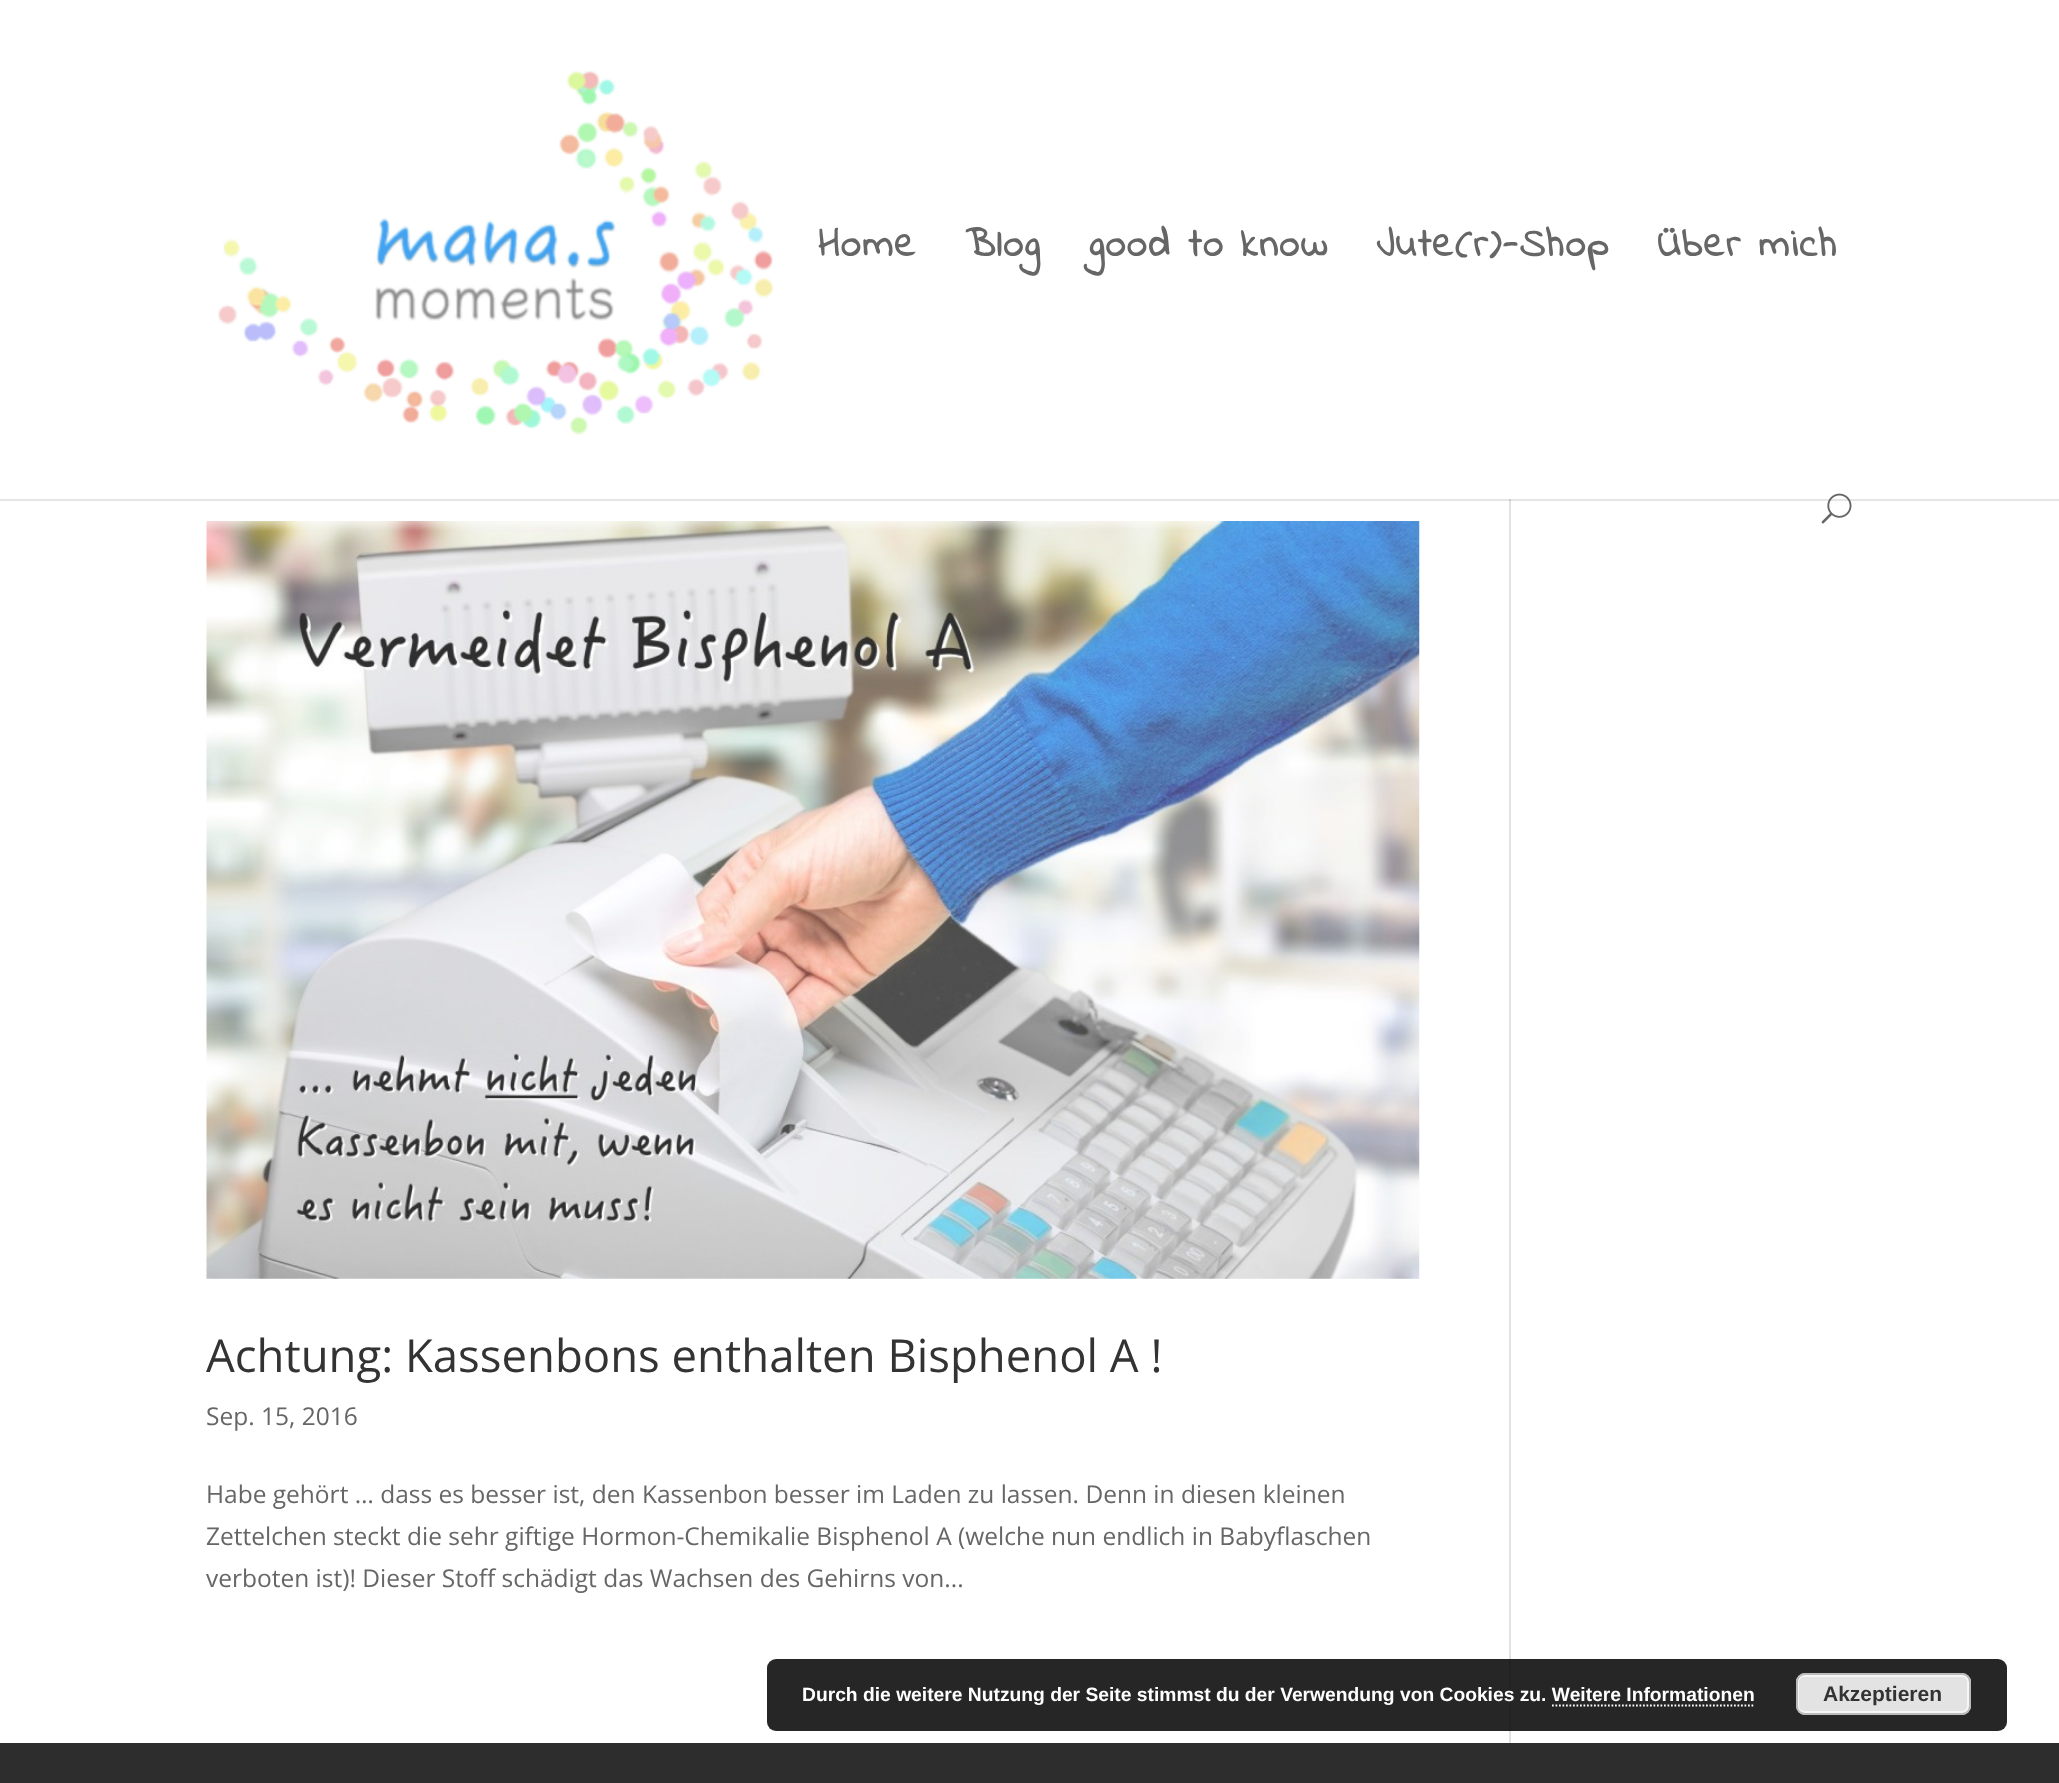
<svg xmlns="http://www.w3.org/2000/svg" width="2059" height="1783">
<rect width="100%" height="100%" fill="#fff"/>
<rect x="1509" y="499" width="2" height="1244" fill="#e2e2e2"/>
<path d="M0 499v2h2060v-499v497z" fill="#0000001a"/>
<image x="218" y="71" width="556" height="364" href="media/1.png"/>
<text x="818" y="256" style="font-family:Indie Flower;font-size:40.25px;font-weight:bold;letter-spacing:1.75px;fill:#666">Home</text>
<text x="965" y="256" style="font-family:Indie Flower;font-size:40.25px;font-weight:bold;letter-spacing:1.75px;fill:#666">Blog</text>
<text x="1089" y="256" style="font-family:Indie Flower;font-size:40.25px;font-weight:bold;letter-spacing:1.75px;fill:#666">good to know</text>
<text x="1376" y="256" style="font-family:Indie Flower;font-size:40.25px;font-weight:bold;letter-spacing:1.75px;fill:#666">Jute(r)-Shop</text>
<text x="1657" y="256" style="font-family:Indie Flower;font-size:40.25px;font-weight:bold;letter-spacing:1.75px;fill:#666">Über mich</text>
<image x="1821" y="493" width="31" height="31" href="media/2.png"/>
<image x="206" y="521" width="1214" height="758" href="media/3.png"/>
<text x="206" y="1372" style="font-family:Open Sans;font-size:45.5px;fill:#333">Achtung: Kassenbons enthalten Bisphenol A !</text>
<text x="206" y="1425" style="font-family:Open Sans;font-size:24.5px;fill:#666">Sep. 15, 2016</text>
<text x="206" y="1503" style="font-family:Open Sans;font-size:24.5px;fill:#666">Habe gehört … dass es besser ist, den Kassenbon besser im Laden zu lassen. Denn in diesen kleinen</text>
<text x="206" y="1545" style="font-family:Open Sans;font-size:24.5px;fill:#666">Zettelchen steckt die sehr giftige Hormon-Chemikalie Bisphenol A (welche nun endlich in Babyflaschen</text>
<text x="206" y="1587" style="font-family:Open Sans;font-size:24.5px;fill:#666">verboten ist)! Dieser Stoff schädigt das Wachsen des Gehirns von...</text>
<rect y="1743" width="2059" height="40" fill="#2d2d2d"/>
<rect x="767" y="1659" width="1240" height="72" rx="9" fill="#000000d9"/>
<text x="802" y="1701" style="font-family:Liberation Sans;font-size:19.25px;font-weight:bold;fill:#fff">Durch die weitere Nutzung der Seite stimmst du der Verwendung von Cookies zu. Weitere Informationen</text>
<rect x="1796" y="1673" width="175" height="42" rx="9" fill="#e3e3e3"/>
<rect x="1798" y="1676" width="170" height="36" rx="6" fill="none" stroke="#f6f6f6" stroke-width="2"/>
<rect x="1797" y="1674" width="173" height="40" rx="8" fill="none" stroke="#bbb" stroke-width="2"/>
<text x="1823" y="1701" style="font-family:Liberation Sans;font-size:21px;font-weight:bold;fill:#333">Akzeptieren</text>
<path d="M1552 1705.5h203" fill="none" stroke="#fff" stroke-width="1.8" stroke-dasharray="1.75 1.75"/>
</svg>
